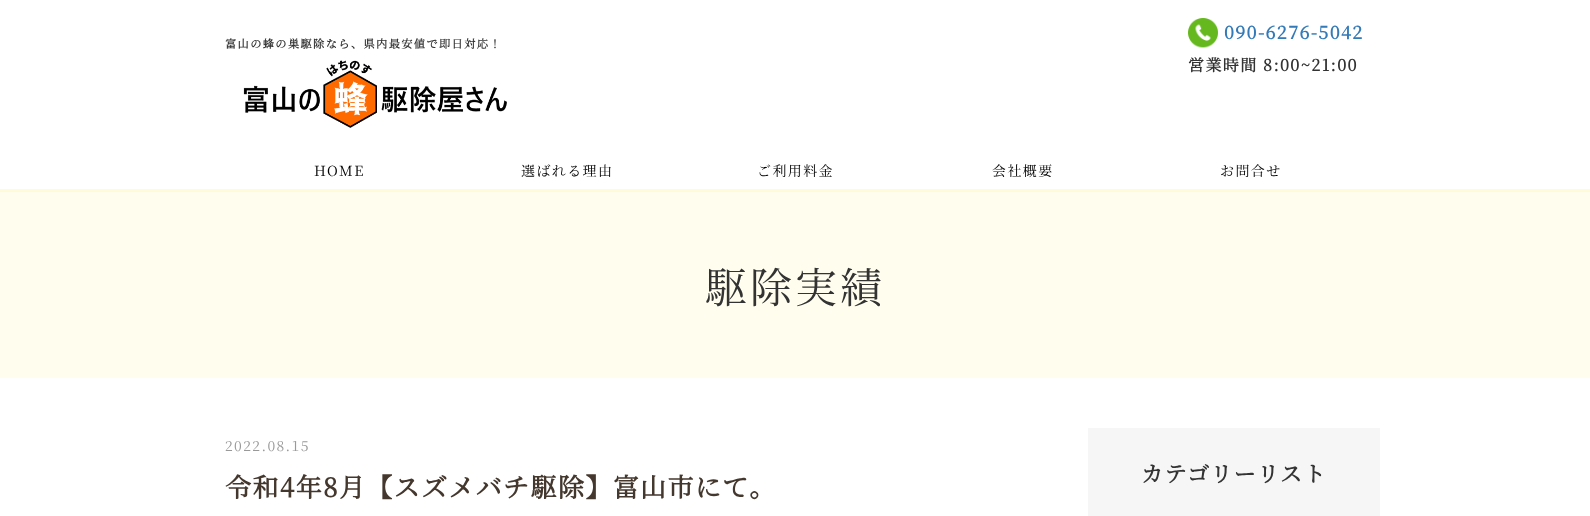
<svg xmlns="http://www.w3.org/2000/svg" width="1590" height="516">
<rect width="100%" height="100%" fill="#fff"/>
<text x="225" y="48" style="font-family:Noto Serif JP;font-size:11.2px;font-weight:bold;letter-spacing:1.4px;fill:#333">富山の蜂の巣駆除なら、県内最安値で即日対応！</text>
<image x="243" y="60" width="264" height="68" href="media/1.png"/>
<image x="1188" y="18" width="30" height="30" href="media/2.png"/>
<text x="1224" y="39" style="font-family:Noto Serif JP;font-size:18px;font-weight:bold;letter-spacing:1.4px;fill:#337ab7">090-6276-5042</text>
<text x="1188" y="71" style="font-family:Noto Serif JP;font-size:16px;font-weight:bold;letter-spacing:1.4px;fill:#333">営業時間 8:00~21:00</text>
<text x="314" y="176" style="font-family:Noto Serif JP;font-size:14px;font-weight:200;letter-spacing:1.4px;fill:#000">HOME</text>
<text x="521" y="176" style="font-family:Noto Serif JP;font-size:14px;font-weight:200;letter-spacing:1.4px;fill:#000">選ばれる理由</text>
<text x="757" y="176" style="font-family:Noto Serif JP;font-size:14px;font-weight:200;letter-spacing:1.4px;fill:#000">ご利用料金</text>
<text x="992" y="176" style="font-family:Noto Serif JP;font-size:14px;font-weight:200;letter-spacing:1.4px;fill:#000">会社概要</text>
<text x="1220" y="176" style="font-family:Noto Serif JP;font-size:14px;font-weight:200;letter-spacing:1.4px;fill:#000">お問合せ</text>
<rect y="189" width="1590" height="3" fill="#fffad9"/>
<rect y="192" width="1590" height="186" fill="#fffdee"/>
<text x="705" y="303" style="font-family:Noto Serif JP;font-size:42px;font-weight:200;letter-spacing:3px;fill:#333">駆除実績</text>
<text x="225" y="451" style="font-family:Noto Serif JP;font-size:14px;font-weight:200;letter-spacing:1.4px;fill:#999">2022.08.15</text>
<text x="225" y="497" style="font-family:Noto Serif JP;font-size:26px;font-weight:bold;letter-spacing:1.4px;fill:#44372d">令和4年8月【スズメバチ駆除】富山市にて。</text>
<rect x="1088" y="428" width="292" height="88" fill="#f6f6f6"/>
<text x="1141" y="482" style="font-family:Noto Serif JP;font-size:22px;font-weight:bold;letter-spacing:1.4px;fill:#333">カテゴリーリスト</text>
</svg>
